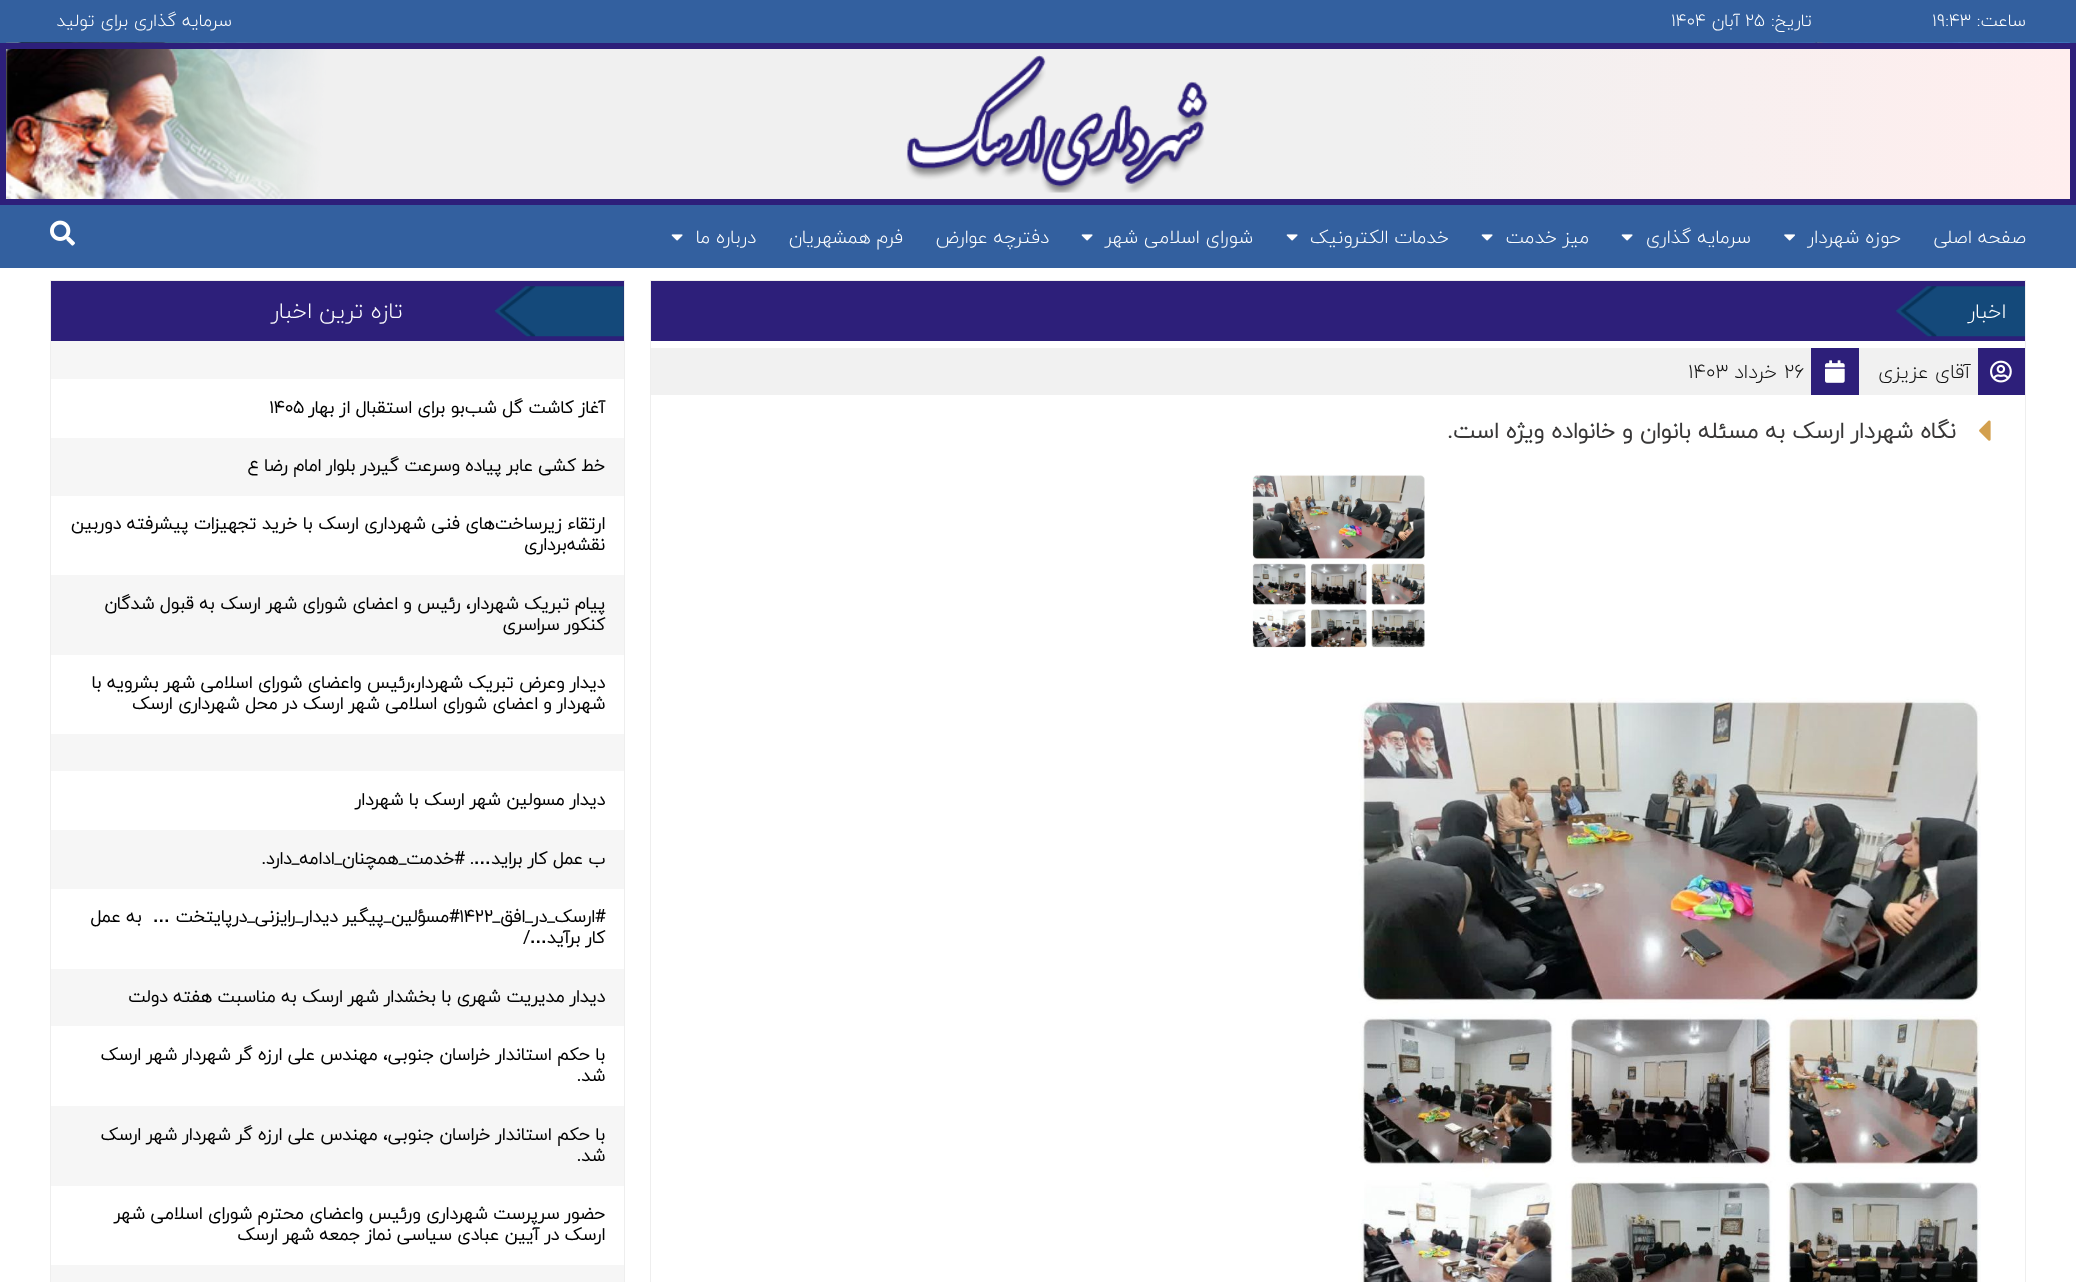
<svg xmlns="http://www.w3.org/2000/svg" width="2076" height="1282">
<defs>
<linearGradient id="g1" gradientUnits="userSpaceOnUse" x1="1395" y1="124" x2="2070" y2="124"><stop offset="0" stop-color="#f0f0f0"/><stop offset="1" stop-color="#fee"/></linearGradient>
</defs>
<rect width="100%" height="100%" fill="#fff"/>
<rect width="2076" height="43" fill="#33609f"/>
<text x="2026" y="26" style="font-family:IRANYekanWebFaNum;font-size:17.5px;font-weight:300;direction:rtl;fill:#fff">ساعت:</text>
<text x="1932" y="26" style="font-family:IRANYekanWebFaNum;font-size:17.5px;font-weight:300;fill:#fff">۱۹:۴۳</text>
<text x="1812" y="26" style="font-family:IRANYekanWebFaNum;font-size:17.5px;font-weight:300;direction:rtl;fill:#fff">تاریخ:</text>
<text x="1745" y="26" style="font-family:IRANYekanWebFaNum;font-size:17.5px;font-weight:300;fill:#fff">۲۵</text>
<text x="1740" y="26" style="font-family:IRANYekanWebFaNum;font-size:17.5px;font-weight:300;direction:rtl;fill:#fff">آبان</text>
<text x="1671" y="26" style="font-family:IRANYekanWebFaNum;font-size:17.5px;font-weight:300;fill:#fff">۱۴۰۴</text>
<text x="232" y="26" style="font-family:IRANYekanWebFaNum;font-size:17.5px;font-weight:300;direction:rtl;fill:#fff">سرمایه گذاری برای تولید</text>
<rect x="6" y="49" width="1389" height="150" fill="#f0f0f0"/>
<image x="6" y="42" width="2064" height="157" href="media/1.png"/>
<rect x="3" y="46" width="2070" height="156" fill="none" stroke="#2d1f7a" stroke-width="6"/>
<rect x="1395" y="49" width="675" height="150" fill="url(#g1)"/>
<image x="906" y="55" width="302" height="138" href="media/2.png"/>
<rect y="205" width="2076" height="63" fill="#33609f"/>
<text x="2026" y="243" style="font-family:IRANYekanWebFaNum;font-size:18.75px;font-weight:300;direction:rtl;fill:#fff">صفحه اصلی</text>
<text x="1901" y="243" style="font-family:IRANYekanWebFaNum;font-size:18.75px;font-weight:300;direction:rtl;fill:#fff">حوزه شهردار</text>
<image x="1784" y="234" width="11" height="7" href="media/3.png"/>
<text x="1751" y="243" style="font-family:IRANYekanWebFaNum;font-size:18.75px;font-weight:300;direction:rtl;fill:#fff">سرمایه گذاری</text>
<image x="1621" y="234" width="12" height="7" href="media/4.png"/>
<text x="1589" y="243" style="font-family:IRANYekanWebFaNum;font-size:18.75px;font-weight:300;direction:rtl;fill:#fff">میز خدمت</text>
<image x="1481" y="234" width="12" height="7" href="media/4.png"/>
<text x="1449" y="243" style="font-family:IRANYekanWebFaNum;font-size:18.75px;font-weight:300;direction:rtl;fill:#fff">خدمات الکترونیک</text>
<image x="1286" y="234" width="12" height="7" href="media/4.png"/>
<text x="1253" y="243" style="font-family:IRANYekanWebFaNum;font-size:18.75px;font-weight:300;direction:rtl;fill:#fff">شورای اسلامی شهر</text>
<image x="1081" y="234" width="12" height="7" href="media/4.png"/>
<text x="1049" y="243" style="font-family:IRANYekanWebFaNum;font-size:18.75px;font-weight:300;direction:rtl;fill:#fff">دفترچه عوارض</text>
<text x="903" y="243" style="font-family:IRANYekanWebFaNum;font-size:18.75px;font-weight:300;direction:rtl;fill:#fff">فرم همشهریان</text>
<text x="756" y="243" style="font-family:IRANYekanWebFaNum;font-size:18.75px;font-weight:300;direction:rtl;fill:#fff">درباره ما</text>
<image x="671" y="234" width="12" height="7" href="media/4.png"/>
<image x="50" y="220" width="25" height="26" href="media/5.png"/>
<rect x="650.5" y="280.5" width="1375" height="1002" fill="none" stroke="#eee"/>
<rect x="651" y="281" width="1374" height="60" fill="#2d1f7a"/>
<image x="1895" y="286" width="130" height="51" href="media/6.png"/>
<text x="2006" y="318" style="font-family:IRANYekanWebFaNum;font-size:21px;font-weight:300;direction:rtl;fill:#fff">اخبار</text>
<rect x="651" y="348" width="1327" height="47" fill="#f1f1f1"/>
<rect x="1978" y="348" width="47" height="47" fill="#2d1f7a"/>
<image x="1990" y="360" width="22" height="23" href="media/7.png"/>
<text x="1971" y="378" style="font-family:IRANYekanWebFaNum;font-size:20px;font-weight:300;direction:rtl;fill:#101010">آقای عزیزی</text>
<rect x="1811" y="348" width="48" height="47" fill="#2d1f7a"/>
<image x="1825" y="360" width="20" height="23" href="media/8.png"/>
<text x="1784" y="378" style="font-family:IRANYekanWebFaNum;font-size:20px;font-weight:300;fill:#101010">۲۶</text>
<text x="1777" y="378" style="font-family:IRANYekanWebFaNum;font-size:20px;font-weight:300;direction:rtl;fill:#101010">خرداد</text>
<text x="1688" y="378" style="font-family:IRANYekanWebFaNum;font-size:20px;font-weight:300;fill:#101010">۱۴۰۳</text>
<image x="1979" y="420" width="12" height="21" href="media/9.png"/>
<text x="1956" y="438" style="font-family:IRANYekanWebFaNum;font-size:22.5px;font-weight:bold;direction:rtl;fill:#393838">نگاه شهردار ارسک به مسئله بانوان و خانواده ویژه است.</text>
<image x="1252" y="474" width="173" height="174" href="media/10.png"/>
<image x="1358" y="697" width="623" height="585" href="media/11.png"/>
<rect x="50.5" y="280.5" width="574" height="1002" fill="none" stroke="#eee"/>
<rect x="51" y="281" width="573" height="60" fill="#2d1f7a"/>
<image x="494" y="286" width="130" height="51" href="media/12.png"/>
<text x="403" y="318" style="font-family:IRANYekanWebFaNum;font-size:22.5px;font-weight:300;direction:rtl;fill:#fff">تازه ترین اخبار</text>
<rect x="51" y="341" width="573" height="38" fill="#f6f6f6"/>
<text x="605" y="413" style="font-family:IRANYekanWebFaNum;font-size:17.5px;font-weight:bold;direction:rtl;fill:#000">آغاز کاشت گل شب‌بو برای استقبال از بهار</text>
<text x="269" y="413" style="font-family:IRANYekanWebFaNum;font-size:17.5px;font-weight:bold;fill:#000">۱۴۰۵</text>
<rect x="51" y="438" width="573" height="58" fill="#f6f6f6"/>
<text x="605" y="471" style="font-family:IRANYekanWebFaNum;font-size:17.5px;font-weight:bold;direction:rtl;fill:#000">خط کشی عابر پیاده وسرعت گیردر بلوار امام رضا ع</text>
<text x="605" y="529" style="font-family:IRANYekanWebFaNum;font-size:17.5px;font-weight:bold;direction:rtl;fill:#000">ارتقاء زیرساخت‌های فنی شهرداری ارسک با خرید تجهیزات پیشرفته دوربین</text>
<text x="605" y="550" style="font-family:IRANYekanWebFaNum;font-size:17.5px;font-weight:bold;direction:rtl;fill:#000">نقشه‌برداری</text>
<rect x="51" y="575" width="573" height="80" fill="#f6f6f6"/>
<text x="605" y="609" style="font-family:IRANYekanWebFaNum;font-size:17.5px;font-weight:bold;direction:rtl;fill:#000">پیام تبریک شهردار، رئیس و اعضای شورای شهر ارسک به قبول شدگان</text>
<text x="605" y="630" style="font-family:IRANYekanWebFaNum;font-size:17.5px;font-weight:bold;direction:rtl;fill:#000">کنکور سراسری</text>
<text x="605" y="688" style="font-family:IRANYekanWebFaNum;font-size:17.5px;font-weight:bold;direction:rtl;fill:#000">دیدار وعرض تبریک ‌‌شهردار،رئیس واعضای شورای اسلامی شهر بشرویه با</text>
<text x="605" y="709" style="font-family:IRANYekanWebFaNum;font-size:17.5px;font-weight:bold;direction:rtl;fill:#000">شهردار و اعضای شورای اسلامی شهر ارسک در محل شهرداری ارسک</text>
<rect x="51" y="734" width="573" height="37" fill="#f6f6f6"/>
<text x="605" y="805" style="font-family:IRANYekanWebFaNum;font-size:17.5px;font-weight:bold;direction:rtl;fill:#000">دیدار مسولین شهر ارسک با شهردار</text>
<rect x="51" y="830" width="573" height="59" fill="#f6f6f6"/>
<text x="605" y="864" style="font-family:IRANYekanWebFaNum;font-size:17.5px;font-weight:bold;direction:rtl;fill:#000">ب عمل کار براید</text>
<text x="491" y="864" style="font-family:Liberation Sans;font-size:17.5px;font-weight:bold;direction:rtl;fill:#000">…</text>
<text x="474" y="864" style="font-family:IRANYekanWebFaNum;font-size:17.5px;font-weight:bold;direction:rtl;fill:#000">. #خدمت_همچنان_ادامه_دارد.</text>
<text x="605" y="922" style="font-family:IRANYekanWebFaNum;font-size:17.5px;font-weight:bold;direction:rtl;fill:#000">#ارسک_در_افق_</text>
<text x="459" y="922" style="font-family:IRANYekanWebFaNum;font-size:17.5px;font-weight:bold;fill:#000">۱۴۲۲</text>
<text x="459" y="922" style="font-family:IRANYekanWebFaNum;font-size:17.5px;font-weight:bold;direction:rtl;fill:#000">#مسؤلین_پیگیر دیدار_رایزنی_درپایتخت</text>
<text x="170" y="922" style="font-family:Liberation Sans;font-size:17.5px;font-weight:bold;direction:rtl;fill:#000">…</text>
<text x="147" y="922" style="font-family:IRANYekanWebFaNum;font-size:17.5px;font-weight:bold;direction:rtl;fill:#000">‍ به عمل</text>
<text x="605" y="943" style="font-family:IRANYekanWebFaNum;font-size:17.5px;font-weight:bold;direction:rtl;fill:#000">کار برآید</text>
<text x="547" y="943" style="font-family:Liberation Sans;font-size:17.5px;font-weight:bold;direction:rtl;fill:#000">…</text>
<text x="530" y="943" style="font-family:IRANYekanWebFaNum;font-size:17.5px;font-weight:bold;direction:rtl;fill:#000">/</text>
<rect x="51" y="969" width="573" height="57" fill="#f6f6f6"/>
<text x="605" y="1002" style="font-family:IRANYekanWebFaNum;font-size:17.5px;font-weight:bold;direction:rtl;fill:#000">دیدار مدیریت شهری با بخشدار شهر ارسک به مناسبت هفته دولت</text>
<text x="605" y="1060" style="font-family:IRANYekanWebFaNum;font-size:17.5px;font-weight:bold;direction:rtl;fill:#000">با حکم استاندار خراسان‌ جنوبی، مهندس علی ارزه گر شهردار شهر ارسک</text>
<text x="605" y="1081" style="font-family:IRANYekanWebFaNum;font-size:17.5px;font-weight:bold;direction:rtl;fill:#000">شد.</text>
<rect x="51" y="1106" width="573" height="80" fill="#f6f6f6"/>
<text x="605" y="1140" style="font-family:IRANYekanWebFaNum;font-size:17.5px;font-weight:bold;direction:rtl;fill:#000">با حکم استاندار خراسان‌ جنوبی، مهندس علی ارزه گر شهردار شهر ارسک</text>
<text x="605" y="1161" style="font-family:IRANYekanWebFaNum;font-size:17.5px;font-weight:bold;direction:rtl;fill:#000">شد.</text>
<text x="605" y="1219" style="font-family:IRANYekanWebFaNum;font-size:17.5px;font-weight:bold;direction:rtl;fill:#000">حضور سرپرست شهرداری ورئیس واعضای محترم شورای اسلامی شهر</text>
<text x="605" y="1240" style="font-family:IRANYekanWebFaNum;font-size:17.5px;font-weight:bold;direction:rtl;fill:#000">ارسک در آیین عبادی سیاسی نماز جمعه شهر ارسک</text>
<rect x="51" y="1265" width="573" height="17" fill="#f6f6f6"/>
</svg>
